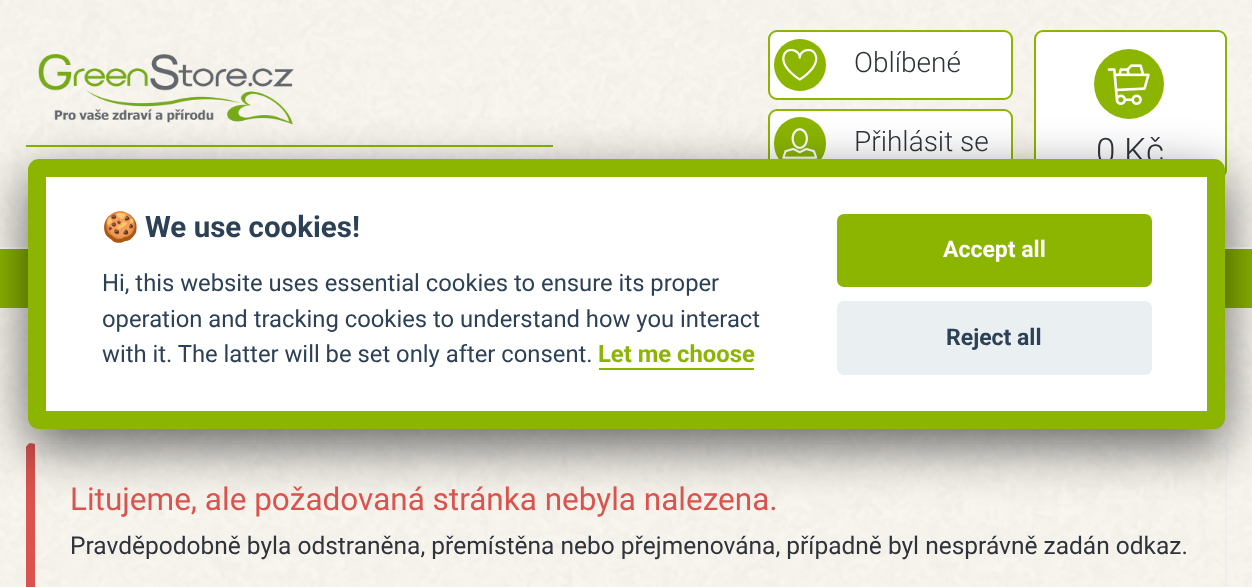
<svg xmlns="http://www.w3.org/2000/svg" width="1252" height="587">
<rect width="100%" height="100%" fill="#fff"/>
<image x="0" y="0" width="1252" height="587" href="media/1.png"/>
<image x="38" y="54" width="256" height="71" href="media/2.png"/>
<rect x="26" y="145" width="527" height="2" fill="#8bb500"/>
<rect x="769" y="31" width="243" height="68" rx="8" fill="#fff" stroke="#8bb500" stroke-width="2"/>
<circle cx="800" cy="65" r="26" fill="#8bb500"/>
<image x="782" y="48" width="36" height="33" href="media/3.png"/>
<text x="854" y="72" style="font-family:Roboto;font-size:28px;font-weight:300;fill:#2f343b">Oblíbené</text>
<rect x="769" y="110" width="243" height="68" rx="8" fill="#fff" stroke="#8bb500" stroke-width="2"/>
<rect x="774" y="117" width="52" height="53" rx="26" fill="#8bb500"/>
<image x="782" y="128" width="36" height="31" href="media/4.png"/>
<text x="854" y="151" style="font-family:Roboto;font-size:28px;font-weight:300;fill:#2f343b">Přihlásit se</text>
<rect x="1035" y="31" width="191" height="147" rx="8" fill="#fff" stroke="#8bb500" stroke-width="2"/>
<circle cx="1129" cy="84" r="35" fill="#8bb500"/>
<image x="1107" y="64" width="43" height="41" href="media/5.png"/>
<text x="1096" y="163" style="font-family:Roboto;font-size:35px;font-weight:300;fill:#2f343b">0 Kč</text>
<rect y="249" width="1252" height="59" fill="#8bb500"/>
<rect y="247" width="1252" height="2" fill="#fff"/>
<path d="M32 443h-2l5 1h1187l2 1l1-1l-3-1z" fill="#eee"/>
<path d="M1225 444c7 6 2 19 2 28v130l-2 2l-1-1c1-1 1-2 1-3v-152l-1-3z" fill="#eee"/>
<path d="M26 447c1-2 2-3 4-4l5 1v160l-6 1c-1-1-2-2-3-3z" fill="#d9534f"/>
<rect x="28" y="177" width="1197" height="269" rx="11" fill="#02020399" filter="blur(26px)"/>
<rect x="37" y="168" width="1179" height="252" rx="2" fill="#fff" stroke="#8bb500" stroke-width="18"/>
<text x="102" y="237" style="font-family:Noto Color Emoji;font-size:29.5px;font-weight:bold;fill:#2d4156">🍪</text>
<text x="145" y="237" style="font-family:Roboto;font-size:29.5px;font-weight:bold;fill:#2d4156">We use cookies!</text>
<text x="102" y="291" style="font-family:Roboto;font-size:23.8px;fill:#2d4156">Hi, this website uses essential cookies to ensure its proper</text>
<text x="102" y="327" style="font-family:Roboto;font-size:23.8px;fill:#2d4156">operation and tracking cookies to understand how you interact</text>
<text x="102" y="362" style="font-family:Roboto;font-size:23.8px;fill:#2d4156">with it. The latter will be set only after consent.</text>
<text x="598" y="362" style="font-family:Roboto;font-size:23.8px;font-weight:bold;fill:#8bb500">Let me choose</text>
<rect x="599" y="368" width="155" height="2" fill="#8bb500"/>
<rect x="837" y="214" width="315" height="73" rx="7" fill="#8bb500"/>
<text x="943" y="257" style="font-family:Roboto;font-size:23px;font-weight:bold;fill:#fff">Accept all</text>
<rect x="837" y="301" width="315" height="74" rx="7" fill="#eaeff2"/>
<text x="946" y="345" style="font-family:Roboto;font-size:23px;font-weight:bold;fill:#2d4156">Reject all</text>
<text x="70" y="510" style="font-family:Roboto;font-size:31.5px;fill:#d9534f">Litujeme, ale požadovaná stránka nebyla nalezena.</text>
<text x="70" y="554" style="font-family:Roboto;font-size:24.5px;fill:#2f343b">Pravděpodobně byla odstraněna, přemístěna nebo přejmenována, případně byl nesprávně zadán odkaz.</text>
</svg>
